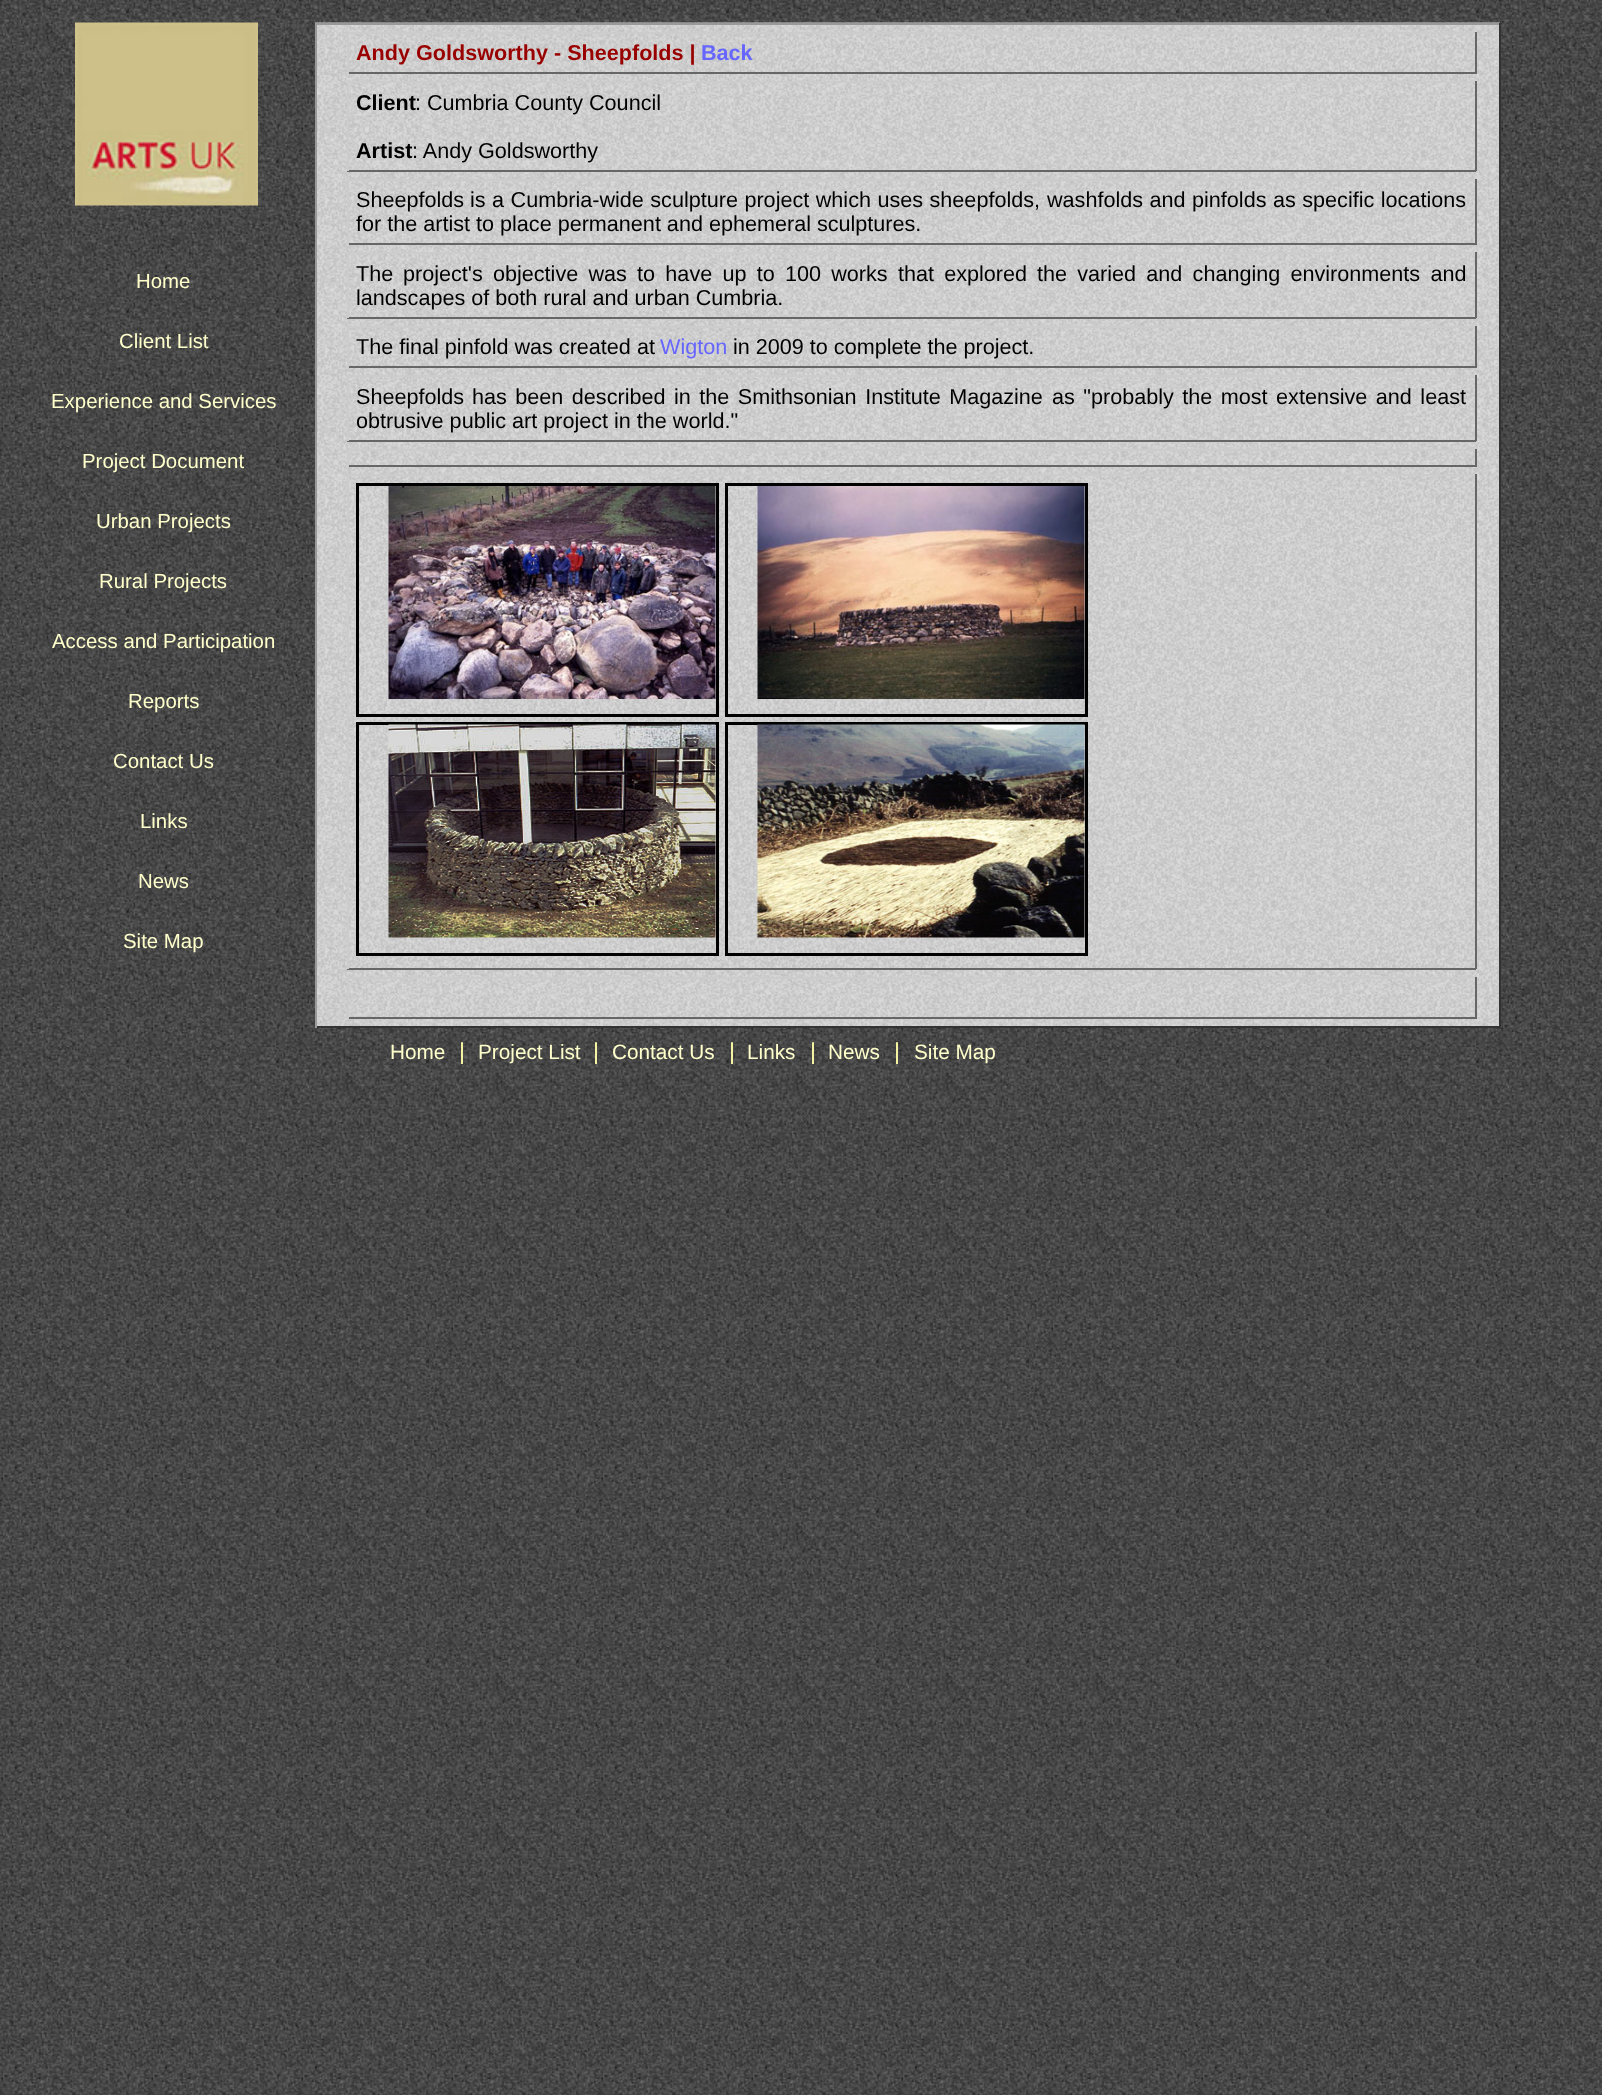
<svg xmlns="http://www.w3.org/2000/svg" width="1602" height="2095">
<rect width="100%" height="100%" fill="#fff"/>
<image x="0" y="0" width="1602" height="2095" href="media/1.png"/>
<image x="75" y="22" width="183" height="184" href="media/2.png"/>
<text x="136" y="288" style="font-family:Liberation Sans;font-size:20.4px;fill:#ffc">Home</text>
<text x="119" y="348" style="font-family:Liberation Sans;font-size:20.4px;fill:#ffc">Client List</text>
<text x="51" y="408" style="font-family:Liberation Sans;font-size:20.4px;fill:#ffc">Experience and Services</text>
<text x="82" y="468" style="font-family:Liberation Sans;font-size:20.4px;fill:#ffc">Project Document</text>
<text x="96" y="528" style="font-family:Liberation Sans;font-size:20.4px;fill:#ffc">Urban Projects</text>
<text x="99" y="588" style="font-family:Liberation Sans;font-size:20.4px;fill:#ffc">Rural Projects</text>
<text x="52" y="648" style="font-family:Liberation Sans;font-size:20.4px;fill:#ffc">Access and Participation</text>
<text x="128" y="708" style="font-family:Liberation Sans;font-size:20.4px;fill:#ffc">Reports</text>
<text x="113" y="768" style="font-family:Liberation Sans;font-size:20.4px;fill:#ffc">Contact Us</text>
<text x="140" y="828" style="font-family:Liberation Sans;font-size:20.4px;fill:#ffc">Links</text>
<text x="138" y="888" style="font-family:Liberation Sans;font-size:20.4px;fill:#ffc">News</text>
<text x="123" y="948" style="font-family:Liberation Sans;font-size:20.4px;fill:#ffc">Site Map</text>
<image x="315" y="22" width="1185" height="1004" href="media/3.png"/>
<rect x="315" y="23" width="1185" height="2" fill="#999"/>
<rect x="1499" y="23" width="2" height="1005" fill="#333"/>
<rect x="315" y="1026" width="1185" height="2" fill="#333"/>
<rect x="315" y="23" width="2" height="1005" fill="#999"/>
<rect x="347" y="32" width="1129" height="2" fill="#ccc"/>
<rect x="1475" y="32" width="2" height="42" fill="#666"/>
<rect x="347" y="72" width="1129" height="2" fill="#666"/>
<rect x="347" y="32" width="2" height="42" fill="#ccc"/>
<text x="356" y="60" style="font-family:Liberation Sans;font-size:21.6px;font-weight:bold;fill:#900">Andy Goldsworthy - Sheepfolds |</text>
<text x="701" y="60" style="font-family:Liberation Sans;font-size:21.6px;font-weight:bold;fill:#66f">Back</text>
<rect x="347" y="81" width="1129" height="2" fill="#ccc"/>
<rect x="1475" y="81" width="2" height="90" fill="#666"/>
<rect x="347" y="170" width="1129" height="2" fill="#666"/>
<rect x="347" y="81" width="2" height="90" fill="#ccc"/>
<text x="356" y="110" style="font-family:Liberation Sans;font-size:21.6px;font-weight:bold;fill:#000">Client</text>
<text x="415" y="110" style="font-family:Liberation Sans;font-size:21.6px;fill:#000">: Cumbria County Council</text>
<text x="356" y="158" style="font-family:Liberation Sans;font-size:21.6px;font-weight:bold;fill:#000">Artist</text>
<text x="412" y="158" style="font-family:Liberation Sans;font-size:21.6px;fill:#000">: Andy Goldsworthy</text>
<rect x="347" y="179" width="1129" height="2" fill="#ccc"/>
<rect x="1475" y="179" width="2" height="66" fill="#666"/>
<rect x="347" y="243" width="1129" height="2" fill="#666"/>
<rect x="347" y="179" width="2" height="66" fill="#ccc"/>
<text x="356" y="207" style="font-family:Liberation Sans;font-size:21.6px;fill:#000">Sheepfolds</text>
<text x="470" y="207" word-spacing="0.5" style="font-family:Liberation Sans;font-size:21.6px;fill:#000">is a Cumbria-wide sculpture project which uses sheepfolds,</text>
<text x="1047" y="207" word-spacing="0.5" style="font-family:Liberation Sans;font-size:21.6px;fill:#000">washfolds and pinfolds as specific locations</text>
<text x="356" y="231" style="font-family:Liberation Sans;font-size:21.6px;fill:#000">for the artist to place permanent and ephemeral sculptures.</text>
<rect x="347" y="252" width="1129" height="2" fill="#ccc"/>
<rect x="1475" y="252" width="2" height="66" fill="#666"/>
<rect x="347" y="317" width="1129" height="2" fill="#666"/>
<rect x="347" y="252" width="2" height="66" fill="#ccc"/>
<text x="356" y="281" style="font-family:Liberation Sans;font-size:21.6px;fill:#000">The</text>
<text x="403" y="281" word-spacing="4.25" style="font-family:Liberation Sans;font-size:21.6px;fill:#000">project's objective was to have up to 100 works that explored</text>
<text x="1037" y="281" word-spacing="4.25" style="font-family:Liberation Sans;font-size:21.6px;fill:#000">the varied and changing environments and</text>
<text x="356" y="305" style="font-family:Liberation Sans;font-size:21.6px;fill:#000">landscapes of both rural and urban Cumbria.</text>
<rect x="347" y="326" width="1129" height="2" fill="#ccc"/>
<rect x="1475" y="326" width="2" height="42" fill="#666"/>
<rect x="347" y="366" width="1129" height="2" fill="#666"/>
<rect x="347" y="326" width="2" height="42" fill="#ccc"/>
<text x="356" y="354" style="font-family:Liberation Sans;font-size:21.6px;fill:#000">The final pinfold was created at</text>
<text x="660" y="354" style="font-family:Liberation Sans;font-size:21.6px;fill:#66f">Wigton</text>
<text x="733" y="354" style="font-family:Liberation Sans;font-size:21.6px;fill:#000">in 2009 to complete the project.</text>
<rect x="347" y="375" width="1129" height="2" fill="#ccc"/>
<rect x="1475" y="375" width="2" height="66" fill="#666"/>
<rect x="347" y="440" width="1129" height="2" fill="#666"/>
<rect x="347" y="375" width="2" height="66" fill="#ccc"/>
<text x="356" y="404" style="font-family:Liberation Sans;font-size:21.6px;fill:#000">Sheepfolds</text>
<text x="472" y="404" word-spacing="2.5" style="font-family:Liberation Sans;font-size:21.6px;fill:#000">has been described in the Smithsonian Institute Magazine</text>
<text x="1052" y="404" word-spacing="2.5" style="font-family:Liberation Sans;font-size:21.6px;fill:#000">as "probably the most extensive and least</text>
<text x="356" y="428" style="font-family:Liberation Sans;font-size:21.6px;fill:#000">obtrusive public art project in the world."</text>
<rect x="347" y="449" width="1129" height="2" fill="#ccc"/>
<rect x="1475" y="449" width="2" height="18" fill="#666"/>
<rect x="347" y="465" width="1129" height="2" fill="#666"/>
<rect x="347" y="449" width="2" height="18" fill="#ccc"/>
<rect x="347" y="474" width="1129" height="2" fill="#ccc"/>
<rect x="1475" y="474" width="2" height="495" fill="#666"/>
<rect x="347" y="968" width="1129" height="2" fill="#666"/>
<rect x="347" y="474" width="2" height="495" fill="#ccc"/>
<rect x="357.5" y="484.5" width="360" height="231" fill="none" stroke="#000" stroke-width="3"/>
<rect x="726.5" y="484.5" width="360" height="231" fill="none" stroke="#000" stroke-width="3"/>
<image x="388" y="486" width="328" height="213" href="media/4.png"/>
<image x="757" y="486" width="328" height="213" href="media/5.png"/>
<rect x="357.5" y="723.5" width="360" height="231" fill="none" stroke="#000" stroke-width="3"/>
<rect x="726.5" y="723.5" width="360" height="231" fill="none" stroke="#000" stroke-width="3"/>
<image x="388" y="724" width="328" height="214" href="media/6.png"/>
<image x="757" y="724" width="328" height="214" href="media/7.png"/>
<rect x="347" y="977" width="1129" height="2" fill="#ccc"/>
<rect x="1475" y="977" width="2" height="42" fill="#666"/>
<rect x="347" y="1017" width="1129" height="2" fill="#666"/>
<rect x="347" y="977" width="2" height="42" fill="#ccc"/>
<text x="390" y="1059" style="font-family:Liberation Sans;font-size:20.75px;fill:#ffc">Home</text>
<text x="459" y="1059" style="font-family:Liberation Sans;font-size:23px;fill:#ffa">|</text>
<text x="478" y="1059" style="font-family:Liberation Sans;font-size:20.75px;fill:#ffc">Project List</text>
<text x="593" y="1059" style="font-family:Liberation Sans;font-size:23px;fill:#ffa">|</text>
<text x="612" y="1059" style="font-family:Liberation Sans;font-size:20.75px;fill:#ffc">Contact Us</text>
<text x="729" y="1059" style="font-family:Liberation Sans;font-size:23px;fill:#ffa">|</text>
<text x="747" y="1059" style="font-family:Liberation Sans;font-size:20.75px;fill:#ffc">Links</text>
<text x="810" y="1059" style="font-family:Liberation Sans;font-size:23px;fill:#ffa">|</text>
<text x="828" y="1059" style="font-family:Liberation Sans;font-size:20.75px;fill:#ffc">News</text>
<text x="894" y="1059" style="font-family:Liberation Sans;font-size:23px;fill:#ffa">|</text>
<text x="914" y="1059" style="font-family:Liberation Sans;font-size:20.75px;fill:#ffc">Site Map</text>
</svg>
